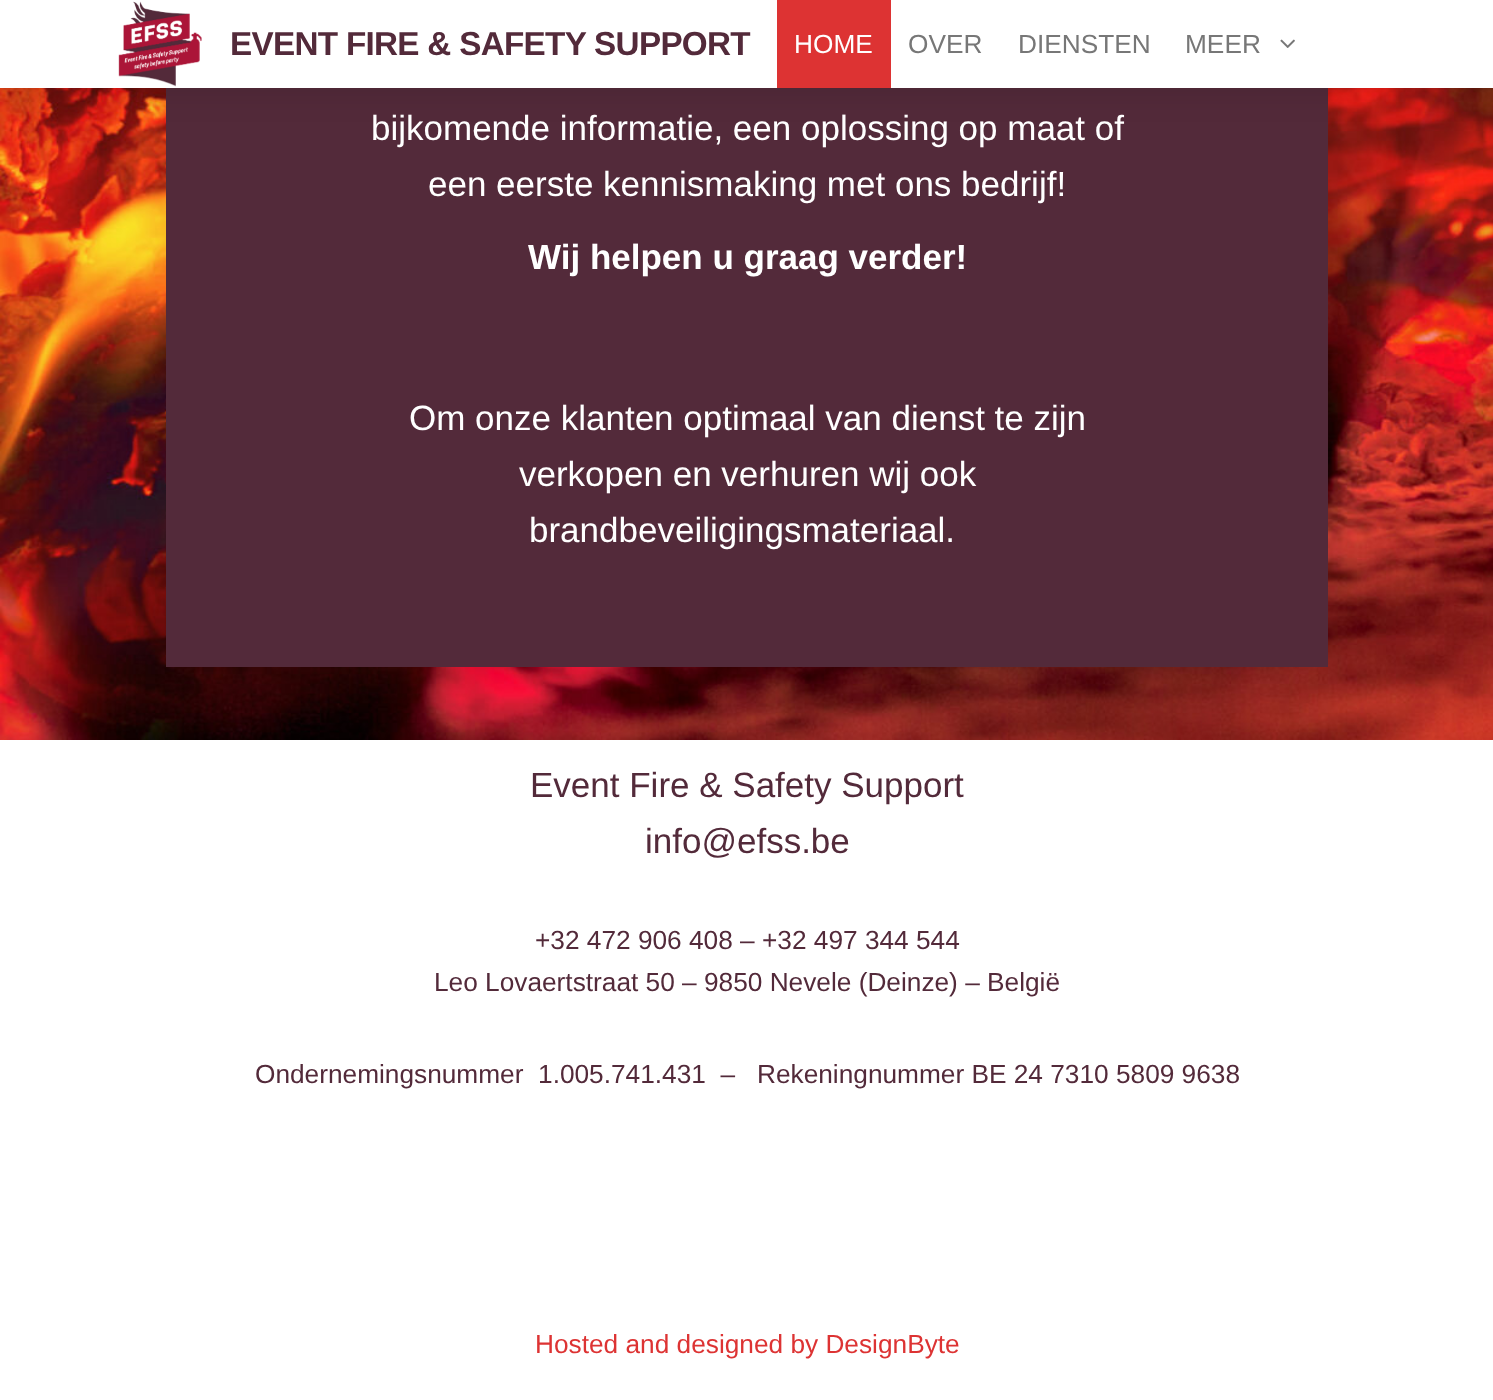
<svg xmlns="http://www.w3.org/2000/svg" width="1493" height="1400">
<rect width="100%" height="100%" fill="#fff"/>
<image x="0" y="88" width="1493" height="652" href="media/3.png"/>
<rect x="166" y="88" width="1162" height="579" fill="#532a3a"/>
<rect y="7" width="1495" height="88" fill="#0000001a" filter="blur(14px)"/>
<rect width="1493" height="88" fill="#fff"/>
<image x="118" y="1" width="84" height="86" href="media/1.png"/>
<text x="230" y="55" style="font-family:Liberation Sans;font-size:33.25px;font-weight:bold;letter-spacing:-0.7px;fill:#532a3a">EVENT FIRE &amp; SAFETY SUPPORT</text>
<rect x="777" width="114" height="88" fill="#d33"/>
<text x="794" y="53" style="font-family:Liberation Sans;font-size:26.25px;fill:#fff">HOME</text>
<text x="908" y="53" style="font-family:Liberation Sans;font-size:26.25px;fill:#777">OVER</text>
<text x="1018" y="53" style="font-family:Liberation Sans;font-size:26.25px;fill:#777">DIENSTEN</text>
<text x="1185" y="53" style="font-family:Liberation Sans;font-size:26.25px;fill:#777">MEER</text>
<image x="1280" y="39" width="15" height="9" href="media/2.png"/>
<text x="371" y="140" style="font-family:Liberation Sans;font-size:35px;fill:#fff">bijkomende informatie, een oplossing op maat of</text>
<text x="428" y="196" style="font-family:Liberation Sans;font-size:35px;fill:#fff">een eerste kennismaking met ons bedrijf!</text>
<text x="528" y="269" style="font-family:Liberation Sans;font-size:35px;font-weight:bold;fill:#fff">Wij helpen u graag verder!</text>
<text x="409" y="430" style="font-family:Liberation Sans;font-size:35px;fill:#fff">Om onze klanten optimaal van dienst te zijn</text>
<text x="519" y="486" style="font-family:Liberation Sans;font-size:35px;fill:#fff">verkopen en verhuren wij ook</text>
<text x="529" y="542" style="font-family:Liberation Sans;font-size:35px;fill:#fff">brandbeveiligingsmateriaal.</text>
<text x="530" y="797" style="font-family:Liberation Sans;font-size:35px;fill:#532a3a">Event Fire &amp; Safety Support</text>
<text x="645" y="853" style="font-family:Liberation Sans;font-size:35px;fill:#532a3a">info@efss.be</text>
<text x="535" y="949" style="font-family:Liberation Sans;font-size:26.25px;fill:#532a3a">+32 472 906 408 – +32 497 344 544</text>
<text x="434" y="991" style="font-family:Liberation Sans;font-size:26.25px;fill:#532a3a">Leo Lovaertstraat 50 – 9850 Nevele (Deinze) – België</text>
<text x="255" y="1083" style="font-family:Liberation Sans;font-size:26.25px;fill:#532a3a" xml:space="preserve">Ondernemingsnummer  1.005.741.431  –   Rekeningnummer BE 24 7310 5809 9638</text>
<text x="535" y="1353" style="font-family:Liberation Sans;font-size:26.25px;fill:#d33">Hosted and designed by DesignByte</text>
</svg>
